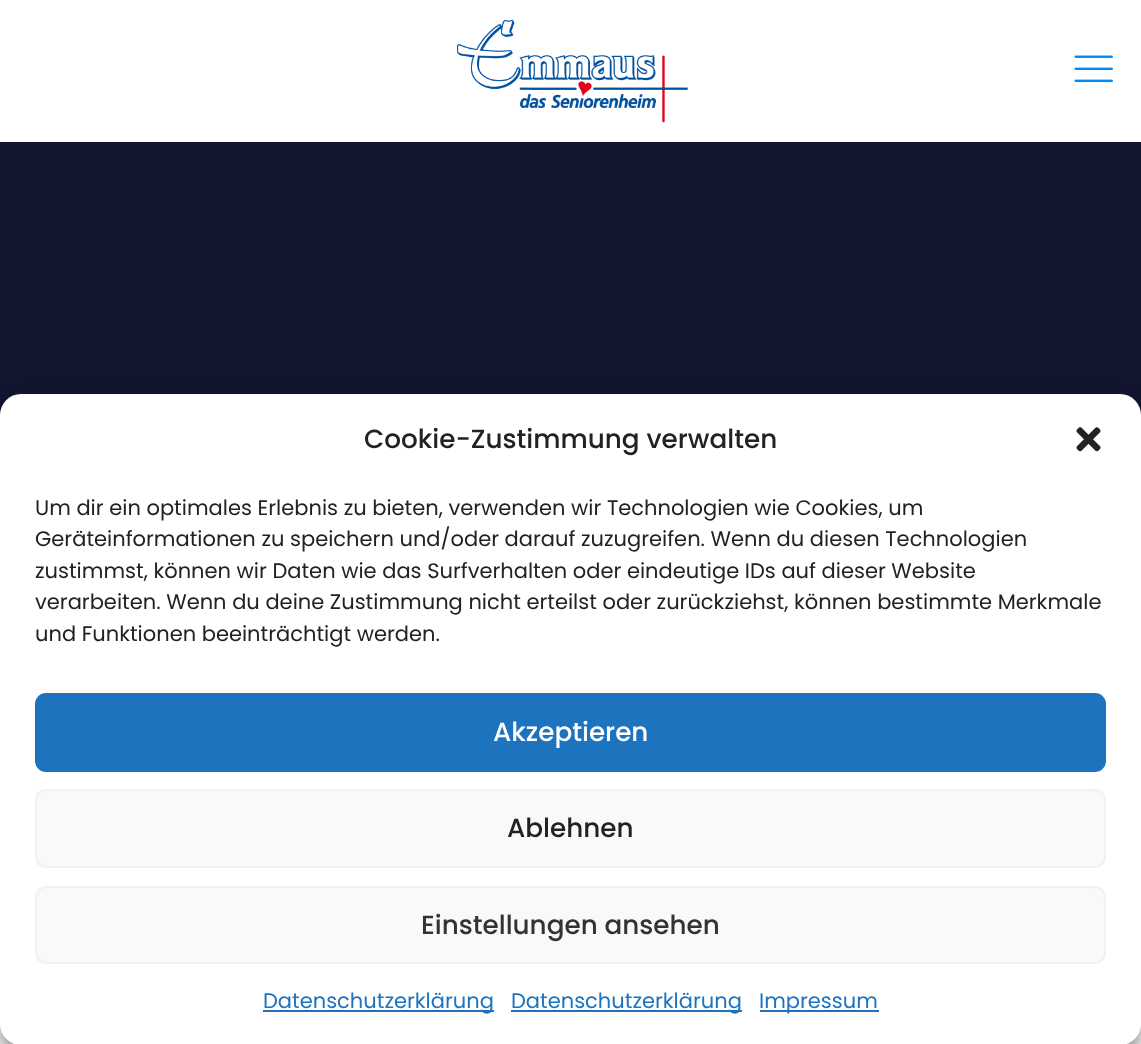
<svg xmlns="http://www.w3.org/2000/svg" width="1141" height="1044">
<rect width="100%" height="100%" fill="#fcfcfc"/>
<rect y="142" width="1141" height="273" fill="#13162f"/>
<rect width="1141" height="142" fill="#fff"/>
<image x="457" y="19" width="231" height="104" href="media/1.png"/>
<image x="1074" y="55" width="39" height="27" href="media/2.png"/>
<rect y="404" width="1141" height="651" rx="21" fill="#0000003b" filter="blur(5px)"/>
<rect y="411" width="1141" height="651" rx="21" fill="#00000030" filter="blur(17.5px)"/>
<rect y="394" width="1141" height="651" rx="21" fill="#fff"/>
<text x="364" y="448" style="font-family:Poppins;font-size:26.25px;font-weight:500;fill:#222">Cookie-Zustimmung verwalten</text>
<image x="1076" y="427" width="25" height="25" href="media/3.png"/>
<text x="35" y="515" style="font-family:Poppins;font-size:21px;fill:#222">Um dir ein optimales Erlebnis zu bieten, verwenden wir Technologien wie Cookies, um</text>
<text x="35" y="546" style="font-family:Poppins;font-size:21px;fill:#222">Geräteinformationen zu speichern und/oder darauf zuzugreifen. Wenn du diesen Technologien</text>
<text x="35" y="578" style="font-family:Poppins;font-size:21px;fill:#222">zustimmst, können wir Daten wie das Surfverhalten oder eindeutige IDs auf dieser Website</text>
<text x="35" y="609" style="font-family:Poppins;font-size:21px;fill:#222">verarbeiten. Wenn du deine Zustimmung nicht erteilst oder zurückziehst, können bestimmte Merkmale</text>
<text x="35" y="641" style="font-family:Poppins;font-size:21px;fill:#222">und Funktionen beeinträchtigt werden.</text>
<rect x="36" y="694" width="1069" height="77" rx="10" fill="#1e73be" stroke="#1e73be" stroke-width="2"/>
<text x="493" y="741" style="font-family:Poppins;font-size:26.25px;font-weight:500;fill:#fff">Akzeptieren</text>
<rect x="36" y="790" width="1069" height="77" rx="10" fill="#f9f9f9" stroke="#f2f2f2" stroke-width="2"/>
<text x="507" y="837" style="font-family:Poppins;font-size:26.25px;font-weight:500;fill:#222">Ablehnen</text>
<rect x="36" y="887" width="1069" height="76" rx="10" fill="#f9f9f9" stroke="#f2f2f2" stroke-width="2"/>
<text x="421" y="934" style="font-family:Poppins;font-size:26.25px;font-weight:500;fill:#333">Einstellungen ansehen</text>
<rect x="263" y="1010" width="231" height="2" fill="#1e73be"/>
<text x="263" y="1008" style="font-family:Poppins;font-size:21px;fill:#1e73be">Datenschutzerklärung</text>
<rect x="511" y="1010" width="231" height="2" fill="#1e73be"/>
<text x="511" y="1008" style="font-family:Poppins;font-size:21px;fill:#1e73be">Datenschutzerklärung</text>
<rect x="760" y="1010" width="119" height="2" fill="#1e73be"/>
<text x="759" y="1008" style="font-family:Poppins;font-size:21px;fill:#1e73be">Impressum</text>
</svg>
